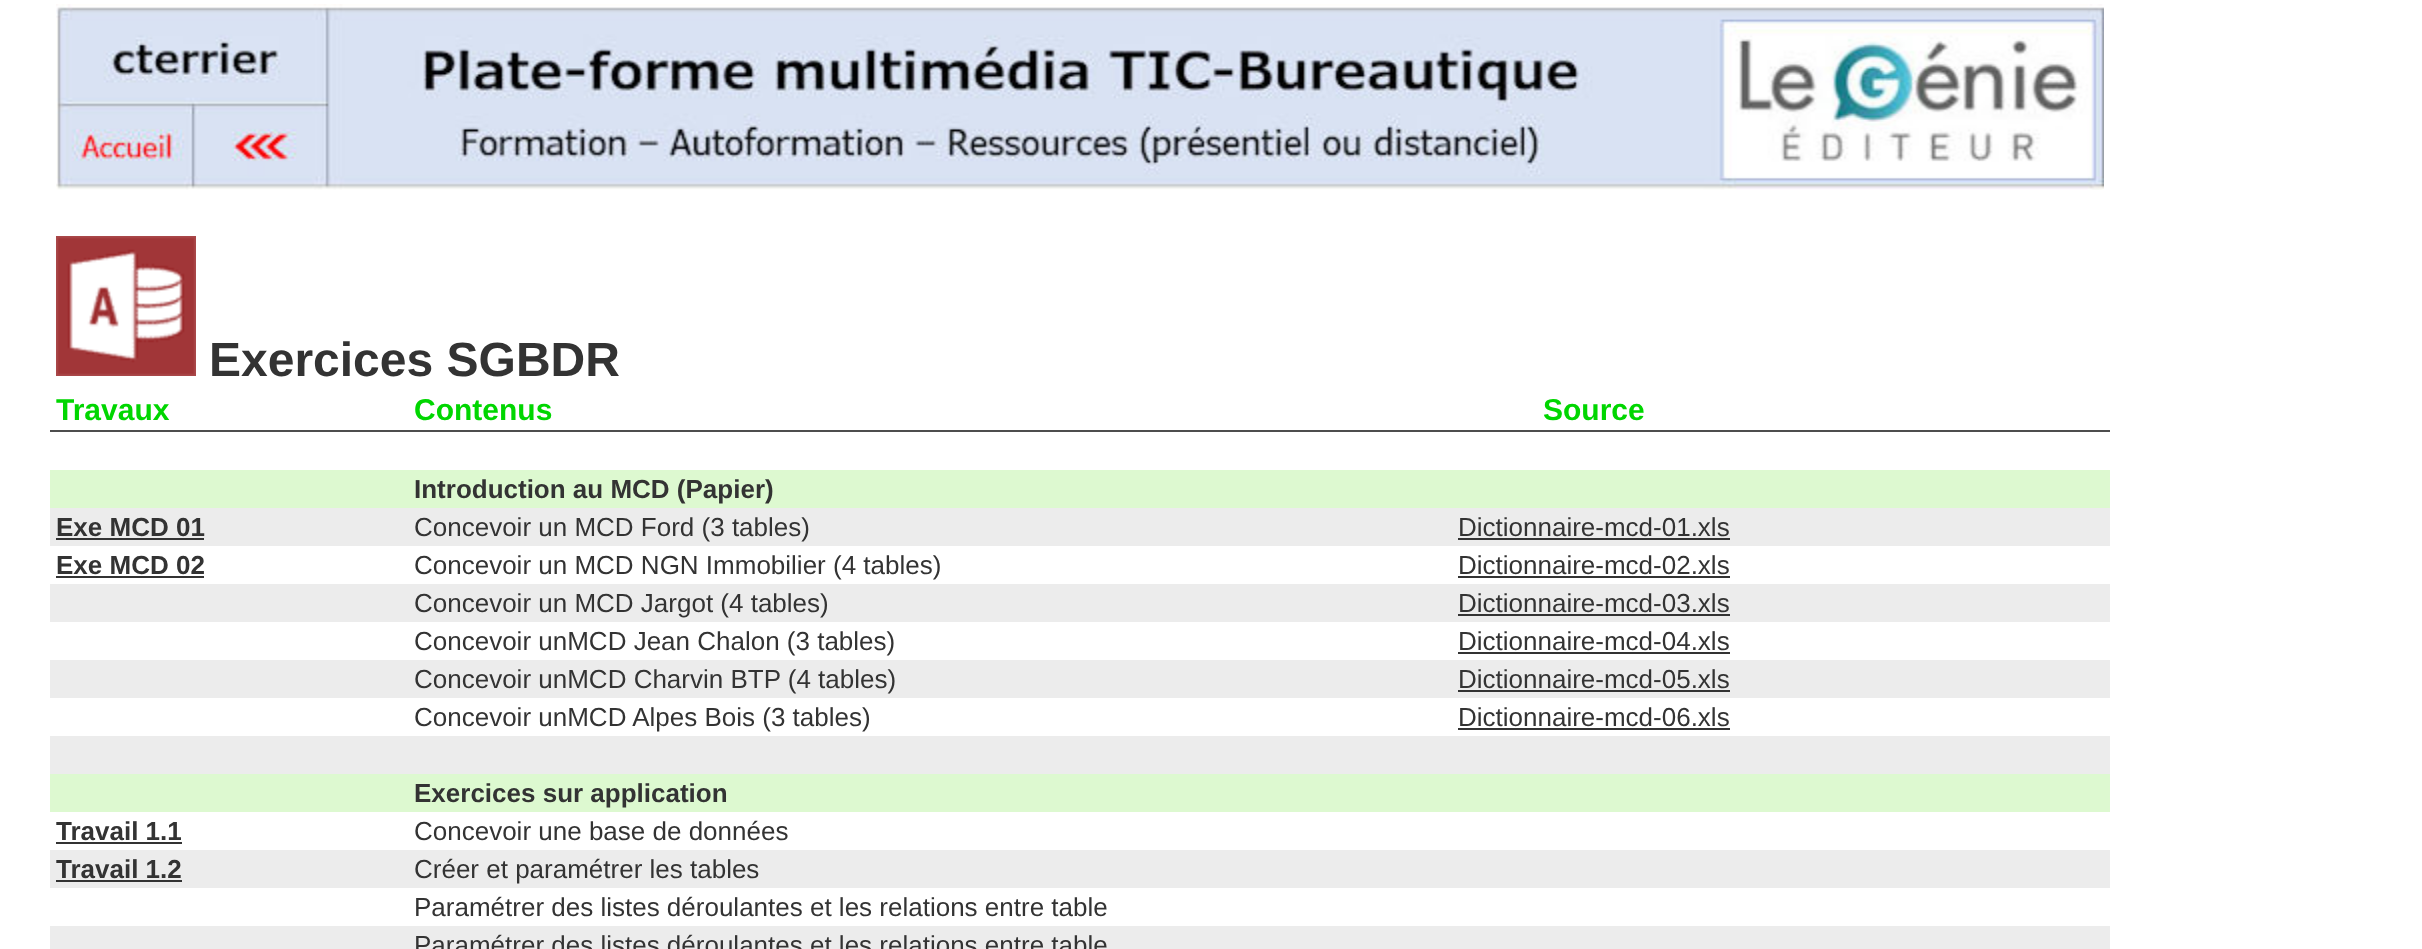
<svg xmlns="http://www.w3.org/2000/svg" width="2422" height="949">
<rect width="100%" height="100%" fill="#fff"/>
<image x="56" y="4" width="2048" height="186" href="media/1.png"/>
<image x="56" y="236" width="140" height="140" href="media/2.png"/>
<text x="209" y="376" style="font-family:Liberation Sans;font-size:48px;font-weight:bold;fill:#333">Exercices SGBDR</text>
<rect x="50" y="430" width="2060" height="2" fill="#4d4d4d"/>
<text x="56" y="420" style="font-family:Liberation Sans;font-size:30px;font-weight:bold;fill:#00d600">Travaux</text>
<text x="414" y="420" style="font-family:Liberation Sans;font-size:30px;font-weight:bold;fill:#00d600">Contenus</text>
<text x="1543" y="420" style="font-family:Liberation Sans;font-size:30px;font-weight:bold;fill:#00d600">Source</text>
<rect x="50" y="470" width="2060" height="38" fill="#ddf9d0"/>
<text x="414" y="498" style="font-family:Liberation Sans;font-size:26px;font-weight:bold;fill:#333">Introduction au MCD (Papier)</text>
<rect x="50" y="508" width="2060" height="38" fill="#ececec"/>
<text x="56" y="536" style="font-family:Liberation Sans;font-size:26px;font-weight:bold;fill:#333">Exe MCD 01</text>
<rect x="56" y="538" width="148" height="2" fill="#333"/>
<text x="414" y="536" style="font-family:Liberation Sans;font-size:26px;fill:#333">Concevoir un MCD Ford (3 tables)</text>
<text x="1458" y="536" style="font-family:Liberation Sans;font-size:26px;fill:#333">Dictionnaire-mcd-01.xls</text>
<rect x="1458" y="538" width="272" height="2" fill="#333"/>
<text x="56" y="574" style="font-family:Liberation Sans;font-size:26px;font-weight:bold;fill:#333">Exe MCD 02</text>
<rect x="56" y="576" width="148" height="2" fill="#333"/>
<text x="414" y="574" style="font-family:Liberation Sans;font-size:26px;fill:#333">Concevoir un MCD NGN Immobilier (4 tables)</text>
<text x="1458" y="574" style="font-family:Liberation Sans;font-size:26px;fill:#333">Dictionnaire-mcd-02.xls</text>
<rect x="1458" y="576" width="272" height="2" fill="#333"/>
<rect x="50" y="584" width="2060" height="38" fill="#ececec"/>
<text x="414" y="612" style="font-family:Liberation Sans;font-size:26px;fill:#333">Concevoir un MCD Jargot (4 tables)</text>
<text x="1458" y="612" style="font-family:Liberation Sans;font-size:26px;fill:#333">Dictionnaire-mcd-03.xls</text>
<rect x="1458" y="614" width="272" height="2" fill="#333"/>
<text x="414" y="650" style="font-family:Liberation Sans;font-size:26px;fill:#333">Concevoir unMCD Jean Chalon (3 tables)</text>
<text x="1458" y="650" style="font-family:Liberation Sans;font-size:26px;fill:#333">Dictionnaire-mcd-04.xls</text>
<rect x="1458" y="652" width="272" height="2" fill="#333"/>
<rect x="50" y="660" width="2060" height="38" fill="#ececec"/>
<text x="414" y="688" style="font-family:Liberation Sans;font-size:26px;fill:#333">Concevoir unMCD Charvin BTP (4 tables)</text>
<text x="1458" y="688" style="font-family:Liberation Sans;font-size:26px;fill:#333">Dictionnaire-mcd-05.xls</text>
<rect x="1458" y="690" width="272" height="2" fill="#333"/>
<text x="414" y="726" style="font-family:Liberation Sans;font-size:26px;fill:#333">Concevoir unMCD Alpes Bois (3 tables)</text>
<text x="1458" y="726" style="font-family:Liberation Sans;font-size:26px;fill:#333">Dictionnaire-mcd-06.xls</text>
<rect x="1458" y="728" width="272" height="2" fill="#333"/>
<rect x="50" y="736" width="2060" height="38" fill="#ececec"/>
<rect x="50" y="774" width="2060" height="38" fill="#ddf9d0"/>
<text x="414" y="802" style="font-family:Liberation Sans;font-size:26px;font-weight:bold;fill:#333">Exercices sur application</text>
<text x="56" y="840" style="font-family:Liberation Sans;font-size:26px;font-weight:bold;fill:#333">Travail 1.1</text>
<rect x="56" y="842" width="126" height="2" fill="#333"/>
<text x="414" y="840" style="font-family:Liberation Sans;font-size:26px;fill:#333">Concevoir une base de données</text>
<rect x="50" y="850" width="2060" height="38" fill="#ececec"/>
<text x="56" y="878" style="font-family:Liberation Sans;font-size:26px;font-weight:bold;fill:#333">Travail 1.2</text>
<rect x="56" y="880" width="126" height="2" fill="#333"/>
<text x="414" y="878" style="font-family:Liberation Sans;font-size:26px;fill:#333">Créer et paramétrer les tables</text>
<text x="414" y="916" style="font-family:Liberation Sans;font-size:26px;fill:#333">Paramétrer des listes déroulantes et les relations entre table</text>
<rect x="50" y="926" width="2060" height="23" fill="#ececec"/>
<text x="414" y="954" style="font-family:Liberation Sans;font-size:26px;fill:#333">Paramétrer des listes déroulantes et les relations entre table</text>
</svg>
